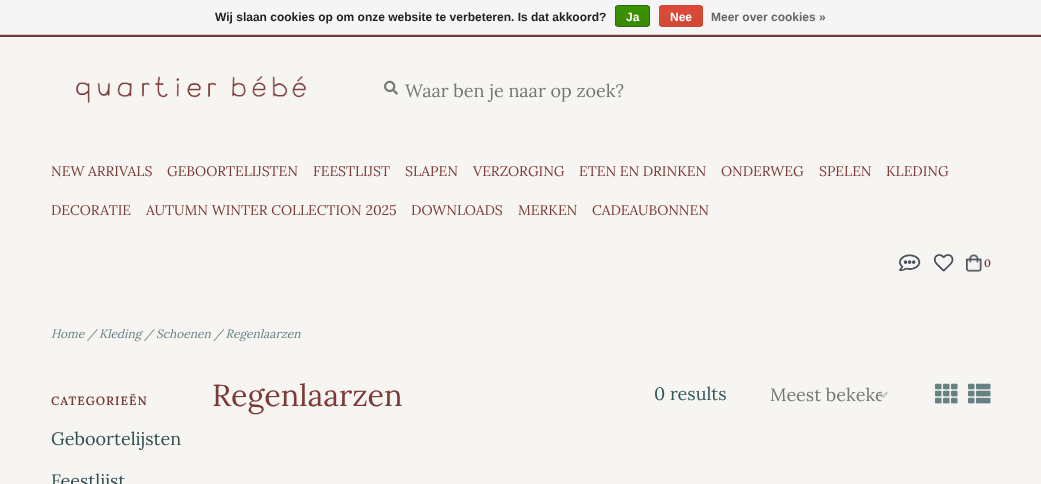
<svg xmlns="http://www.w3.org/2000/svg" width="1041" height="484">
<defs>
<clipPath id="clip1"><rect x="615" y="5" width="35" height="22" rx="3"/></clipPath>
<linearGradient id="g1" gradientUnits="userSpaceOnUse" x1="633" y1="6" x2="633" y2="26"><stop offset="0" stop-color="#3c9300"/><stop offset="1" stop-color="#398a00"/></linearGradient>
<clipPath id="clip2"><rect x="659" y="5" width="44" height="22" rx="3"/></clipPath>
<linearGradient id="g2" gradientUnits="userSpaceOnUse" x1="681" y1="6" x2="681" y2="26"><stop offset="0" stop-color="#dc4a38"/><stop offset="1" stop-color="#d14836"/></linearGradient>
<clipPath id="clip3"><rect x="770" y="386" width="112" height="18"/></clipPath>
</defs>
<rect width="100%" height="100%" fill="#f7f5f2"/>
<rect width="1041" height="34" fill="#f5f5f5"/>
<rect y="34" width="1041" height="1" fill="#ccc"/>
<text x="215" y="21" style="font-family:Liberation Sans;font-size:12px;font-weight:bold;fill:#222">Wij slaan cookies op om onze website te verbeteren. Is dat akkoord?</text>
<g clip-path="url(#clip1)">
<rect x="615" y="6" width="35" height="20" fill="url(#g1)"/>
</g>
<rect x="615.5" y="5.5" width="34" height="21" rx="2.5" fill="none" stroke="#29691d"/>
<text x="626" y="21" style="font-family:Liberation Sans;font-size:12px;font-weight:bold;fill:#fff">Ja</text>
<g clip-path="url(#clip2)">
<rect x="659" y="6" width="44" height="20" fill="url(#g2)"/>
</g>
<rect x="659.5" y="5.5" width="43" height="21" rx="2.5" fill="none" stroke="#d14836"/>
<text x="670" y="21" style="font-family:Liberation Sans;font-size:12px;font-weight:bold;fill:#fff">Nee</text>
<text x="711" y="21" style="font-family:Liberation Sans;font-size:12px;font-weight:bold;fill:#666">Meer over cookies »</text>
<rect y="35" width="1041" height="1" fill="#7a3a37"/>
<rect y="36" width="1041" height="1" fill="#713533"/>
<image x="75" y="75" width="231" height="29" href="media/1.png"/>
<image x="384" y="80" width="14" height="15" href="media/2.png"/>
<text x="405" y="97" style="font-family:Lora;font-size:18px;fill:#757575">Waar ben je naar op zoek?</text>
<text x="51" y="176" style="font-family:Lora;font-size:14px;fill:#7a3a37">NEW ARRIVALS</text>
<text x="167" y="176" style="font-family:Lora;font-size:14px;fill:#7a3a37">GEBOORTELIJSTEN</text>
<text x="313" y="176" style="font-family:Lora;font-size:14px;fill:#7a3a37">FEESTLIJST</text>
<text x="405" y="176" style="font-family:Lora;font-size:14px;fill:#7a3a37">SLAPEN</text>
<text x="473" y="176" style="font-family:Lora;font-size:14px;fill:#7a3a37">VERZORGING</text>
<text x="579" y="176" style="font-family:Lora;font-size:14px;fill:#7a3a37">ETEN EN DRINKEN</text>
<text x="721" y="176" style="font-family:Lora;font-size:14px;fill:#7a3a37">ONDERWEG</text>
<text x="819" y="176" style="font-family:Lora;font-size:14px;fill:#7a3a37">SPELEN</text>
<text x="886" y="176" style="font-family:Lora;font-size:14px;fill:#7a3a37">KLEDING</text>
<text x="51" y="215" style="font-family:Lora;font-size:14px;fill:#7a3a37">DECORATIE</text>
<text x="146" y="215" style="font-family:Lora;font-size:14px;fill:#7a3a37">AUTUMN WINTER COLLECTION 2025</text>
<text x="411" y="215" style="font-family:Lora;font-size:14px;fill:#7a3a37">DOWNLOADS</text>
<text x="518" y="215" style="font-family:Lora;font-size:14px;fill:#7a3a37">MERKEN</text>
<text x="592" y="215" style="font-family:Lora;font-size:14px;fill:#7a3a37">CADEAUBONNEN</text>
<image x="899" y="254" width="22" height="18" href="media/3.png"/>
<image x="933" y="254" width="21" height="18" href="media/4.png"/>
<image x="966" y="254" width="16" height="18" href="media/5.png"/>
<text x="984" y="267" style="font-family:Lora;font-size:11px;font-weight:600;fill:#7a3a37">0</text>
<text x="51" y="338" style="font-family:Lora;font-size:12px;font-style:italic;fill:#668183">Home / Kleding / Schoenen / Regenlaarzen</text>
<text x="51" y="405" style="font-family:Lora;font-size:12px;font-weight:600;letter-spacing:1px;fill:#7a3a37">CATEGORIEËN</text>
<text x="51" y="445" style="font-family:Lora;font-size:18px;fill:#2e4e51">Geboortelijsten</text>
<text x="51" y="487" style="font-family:Lora;font-size:18px;fill:#2e4e51">Feestlijst</text>
<text x="212" y="406" style="font-family:Lora;font-size:30.5px;fill:#7a3a37">Regenlaarzen</text>
<text x="654" y="400" style="font-family:Lora;font-size:18px;fill:#34575a">0 results</text>
<image x="878" y="391" width="10" height="7" href="media/6.png"/>
<g clip-path="url(#clip3)">
<text x="770" y="401" style="font-family:Lora;font-size:18px;fill:#757575">Meest bekeke</text>
</g>
<image x="935" y="383" width="23" height="21" href="media/7.png"/>
<image x="968" y="383" width="23" height="21" href="media/8.png"/>
</svg>
